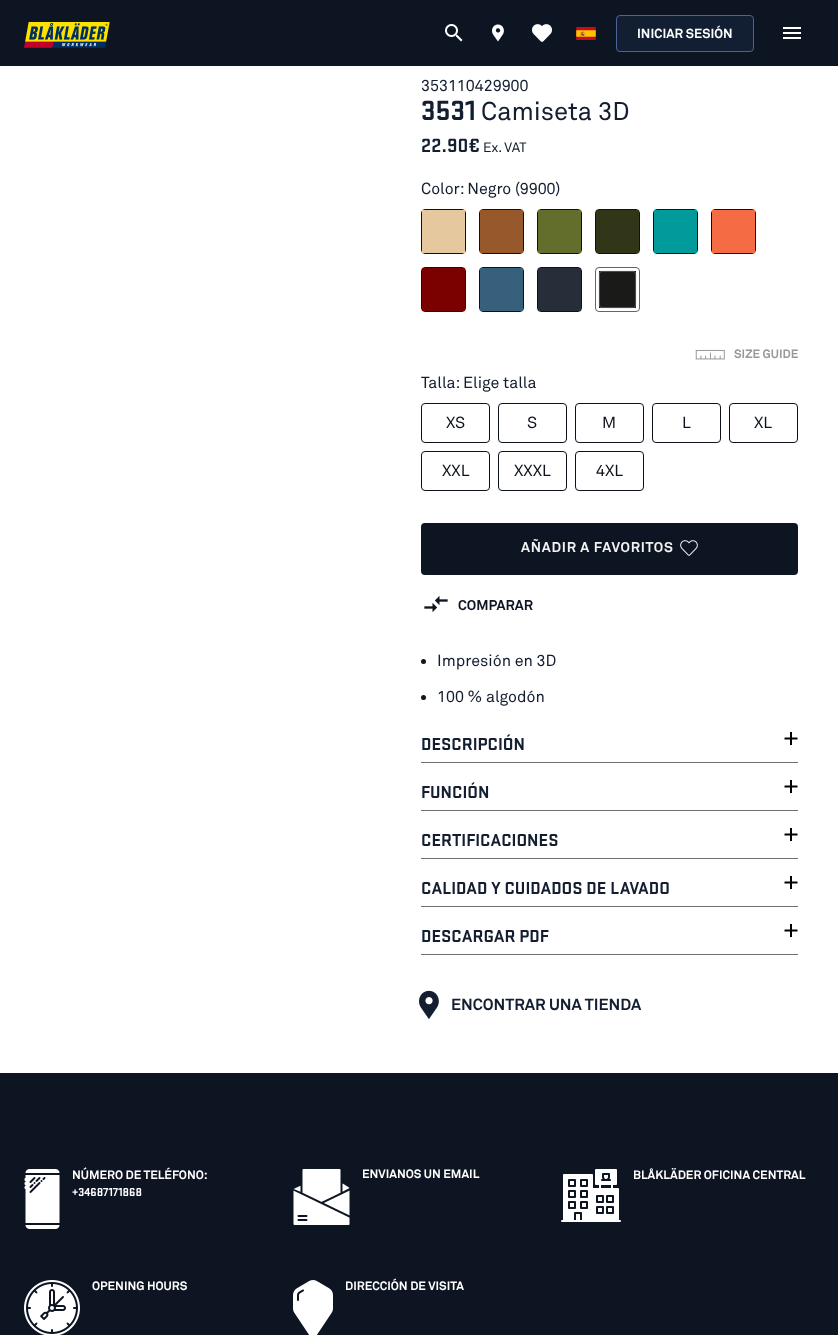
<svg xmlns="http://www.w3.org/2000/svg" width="838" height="1335">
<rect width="100%" height="100%" fill="#fff"/>
<rect width="838" height="66" fill="#0d1523"/>
<image x="24" y="22" width="86" height="26" href="media/1.png"/>
<image x="445" y="24" width="18" height="18" href="media/2.png"/>
<image x="492" y="24" width="12" height="18" href="media/3.png"/>
<image x="532" y="24" width="20" height="18" href="media/4.png"/>
<image x="576" y="27" width="20" height="13" href="media/5.png"/>
<rect x="616.5" y="15.5" width="137" height="36" rx="3.5" fill="#121e31" stroke="#4d6393"/>
<text x="637" y="38" style="font-family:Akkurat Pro;font-size:13px;font-weight:bold;fill:#fff">INICIAR SESIÓN</text>
<image x="783" y="27" width="18" height="12" href="media/6.png"/>
<text x="421" y="91" style="font-family:Akkurat Pro;font-size:16px;fill:#131e30">353110429900</text>
<text x="421" y="120" style="font-family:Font;font-size:29px;font-weight:bold;fill:#131e30">3531</text>
<text x="481" y="120" style="font-family:Akkurat Pro;font-size:25.5px;fill:#131e30">Camiseta 3D</text>
<text x="421" y="152" style="font-family:Font;font-size:20px;font-weight:bold;fill:#131e30">22.90€</text>
<text x="483" y="152" style="font-family:Akkurat Pro;font-size:13.5px;fill:#131e30">Ex. VAT</text>
<text x="421" y="194" style="font-family:Akkurat Pro;font-size:16px;fill:#131e30">Color: Negro (9900)</text>
<rect x="421.5" y="209.5" width="44" height="44" rx="3.5" fill="none" stroke="#0c121b"/>
<rect x="422" y="210" width="43" height="43" fill="#e5c89e"/>
<rect x="479.5" y="209.5" width="44" height="44" rx="3.5" fill="none" stroke="#0c121b"/>
<rect x="480" y="210" width="43" height="43" fill="#97582c"/>
<rect x="537.5" y="209.5" width="44" height="44" rx="3.5" fill="none" stroke="#0c121b"/>
<rect x="538" y="210" width="43" height="43" fill="#636e2c"/>
<rect x="595.5" y="209.5" width="44" height="44" rx="3.5" fill="none" stroke="#0c121b"/>
<rect x="596" y="210" width="43" height="43" fill="#323619"/>
<rect x="653.5" y="209.5" width="44" height="44" rx="3.5" fill="none" stroke="#0c121b"/>
<rect x="654" y="210" width="43" height="43" fill="#029b9c"/>
<rect x="711.5" y="209.5" width="44" height="44" rx="3.5" fill="none" stroke="#0c121b"/>
<rect x="712" y="210" width="43" height="43" fill="#f56b44"/>
<rect x="421.5" y="267.5" width="44" height="44" rx="3.5" fill="none" stroke="#0c121b"/>
<rect x="422" y="268" width="43" height="43" fill="#7b0101"/>
<rect x="479.5" y="267.5" width="44" height="44" rx="3.5" fill="none" stroke="#0c121b"/>
<rect x="480" y="268" width="43" height="43" fill="#36607b"/>
<rect x="537.5" y="267.5" width="44" height="44" rx="3.5" fill="none" stroke="#0c121b"/>
<rect x="538" y="268" width="43" height="43" fill="#282d3a"/>
<rect x="595.5" y="267.5" width="44" height="44" rx="3.5" fill="none" stroke="#63626f"/>
<rect x="599" y="271" width="37" height="37" fill="#1a1a18"/>
<rect x="599.4" y="271.4" width="36.2" height="36.2" rx="2.6" fill="none" stroke="#63626f" stroke-width="0.8"/>
<image x="695" y="349" width="30" height="11" href="media/7.png"/>
<text x="734" y="358" style="font-family:Akkurat Pro;font-size:12px;font-weight:bold;fill:#999">SIZE GUIDE</text>
<text x="421" y="388" style="font-family:Akkurat Pro;font-size:16px;fill:#131e30">Talla: Elige talla</text>
<rect x="421.5" y="403.5" width="68" height="39" rx="3.5" fill="none" stroke="#0c121b"/>
<text x="446" y="428" style="font-family:Akkurat Pro;font-size:16px;fill:#0c121b">XS</text>
<rect x="498.5" y="403.5" width="68" height="39" rx="3.5" fill="none" stroke="#0c121b"/>
<text x="527" y="428" style="font-family:Akkurat Pro;font-size:16px;fill:#0c121b">S</text>
<rect x="575.5" y="403.5" width="68" height="39" rx="3.5" fill="none" stroke="#0c121b"/>
<text x="602" y="428" style="font-family:Akkurat Pro;font-size:16px;fill:#0c121b">M</text>
<rect x="652.5" y="403.5" width="68" height="39" rx="3.5" fill="none" stroke="#0c121b"/>
<text x="682" y="428" style="font-family:Akkurat Pro;font-size:16px;fill:#0c121b">L</text>
<rect x="729.5" y="403.5" width="68" height="39" rx="3.5" fill="none" stroke="#0c121b"/>
<text x="754" y="428" style="font-family:Akkurat Pro;font-size:16px;fill:#0c121b">XL</text>
<rect x="421.5" y="451.5" width="68" height="39" rx="3.5" fill="none" stroke="#0c121b"/>
<text x="442" y="476" style="font-family:Akkurat Pro;font-size:16px;fill:#0c121b">XXL</text>
<rect x="498.5" y="451.5" width="68" height="39" rx="3.5" fill="none" stroke="#0c121b"/>
<text x="514" y="476" style="font-family:Akkurat Pro;font-size:16px;fill:#0c121b">XXXL</text>
<rect x="575.5" y="451.5" width="68" height="39" rx="3.5" fill="none" stroke="#0c121b"/>
<text x="596" y="476" style="font-family:Akkurat Pro;font-size:16px;fill:#0c121b">4XL</text>
<rect x="421" y="523" width="377" height="52" rx="4" fill="#0d1523"/>
<text x="521" y="552" style="font-family:Akkurat Pro;font-size:14px;font-weight:bold;letter-spacing:0.75px;fill:#f2f2f2">AÑADIR A FAVORITOS</text>
<image x="680" y="540" width="18" height="16" href="media/8.png"/>
<image x="424" y="596" width="24" height="16" href="media/9.png"/>
<text x="458" y="610" style="font-family:Akkurat Pro;font-size:14px;font-weight:bold;fill:#0d1523">COMPARAR</text>
<circle cx="423.5" cy="661.5" r="2.5" fill="#0d1523"/>
<text x="437" y="666" style="font-family:Akkurat Pro;font-size:16px;fill:#131e30">Impresión en 3D</text>
<circle cx="423.5" cy="697.5" r="2.5" fill="#0d1523"/>
<text x="437" y="702" style="font-family:Akkurat Pro;font-size:16px;fill:#131e30">100 % algodón</text>
<rect x="421" y="762" width="377" height="1" fill="#707070"/>
<text x="421" y="750" style="font-family:Font;font-size:18px;font-weight:bold;fill:#131e30">DESCRIPCIÓN</text>
<path d="M784.5 738.5h13" fill="none" stroke="#000" stroke-width="2"/>
<rect x="790" y="732" width="2" height="13" fill="#000"/>
<rect x="421" y="810" width="377" height="1" fill="#707070"/>
<text x="421" y="798" style="font-family:Font;font-size:18px;font-weight:bold;fill:#131e30">FUNCIÓN</text>
<path d="M784.5 786.5h13" fill="none" stroke="#000" stroke-width="2"/>
<rect x="790" y="780" width="2" height="13" fill="#000"/>
<rect x="421" y="858" width="377" height="1" fill="#707070"/>
<text x="421" y="846" style="font-family:Font;font-size:18px;font-weight:bold;fill:#131e30">CERTIFICACIONES</text>
<path d="M784.5 834.5h13" fill="none" stroke="#000" stroke-width="2"/>
<rect x="790" y="828" width="2" height="13" fill="#000"/>
<rect x="421" y="906" width="377" height="1" fill="#707070"/>
<text x="421" y="894" style="font-family:Font;font-size:18px;font-weight:bold;fill:#131e30">CALIDAD Y CUIDADOS DE LAVADO</text>
<path d="M784.5 882.5h13" fill="none" stroke="#000" stroke-width="2"/>
<rect x="790" y="876" width="2" height="13" fill="#000"/>
<rect x="421" y="954" width="377" height="1" fill="#707070"/>
<text x="421" y="942" style="font-family:Font;font-size:18px;font-weight:bold;fill:#131e30">DESCARGAR PDF</text>
<path d="M784.5 930.5h13" fill="none" stroke="#000" stroke-width="2"/>
<rect x="790" y="924" width="2" height="13" fill="#000"/>
<image x="419" y="990" width="20" height="29" href="media/10.png"/>
<text x="451" y="1010" style="font-family:Akkurat Pro;font-size:16px;font-weight:bold;fill:#131e30">ENCONTRAR UNA TIENDA</text>
<rect y="1073" width="838" height="262" fill="#0d1523"/>
<image x="24" y="1169" width="36" height="60" href="media/11.png"/>
<text x="72" y="1179" style="font-family:Akkurat Pro;font-size:12px;font-weight:bold;fill:#fff">NÚMERO DE TELÉFONO:</text>
<text x="72" y="1196" style="font-family:Font;font-size:12px;font-weight:bold;fill:#fff">+34687171868</text>
<image x="293" y="1169" width="57" height="56" href="media/12.png"/>
<text x="362" y="1178" style="font-family:Akkurat Pro;font-size:12px;font-weight:bold;fill:#fff">ENVIANOS UN EMAIL</text>
<image x="561" y="1169" width="60" height="53" href="media/13.png"/>
<text x="633" y="1179" style="font-family:Akkurat Pro;font-size:12px;font-weight:bold;fill:#fff">BLÅKLÄDER OFICINA CENTRAL</text>
<image x="24" y="1280" width="56" height="55" href="media/14.png"/>
<text x="92" y="1290" style="font-family:Akkurat Pro;font-size:12px;font-weight:bold;fill:#fff">OPENING HOURS</text>
<image x="293" y="1280" width="40" height="55" href="media/15.png"/>
<text x="345" y="1290" style="font-family:Akkurat Pro;font-size:12px;font-weight:bold;fill:#fff">DIRECCIÓN DE VISITA</text>
</svg>
